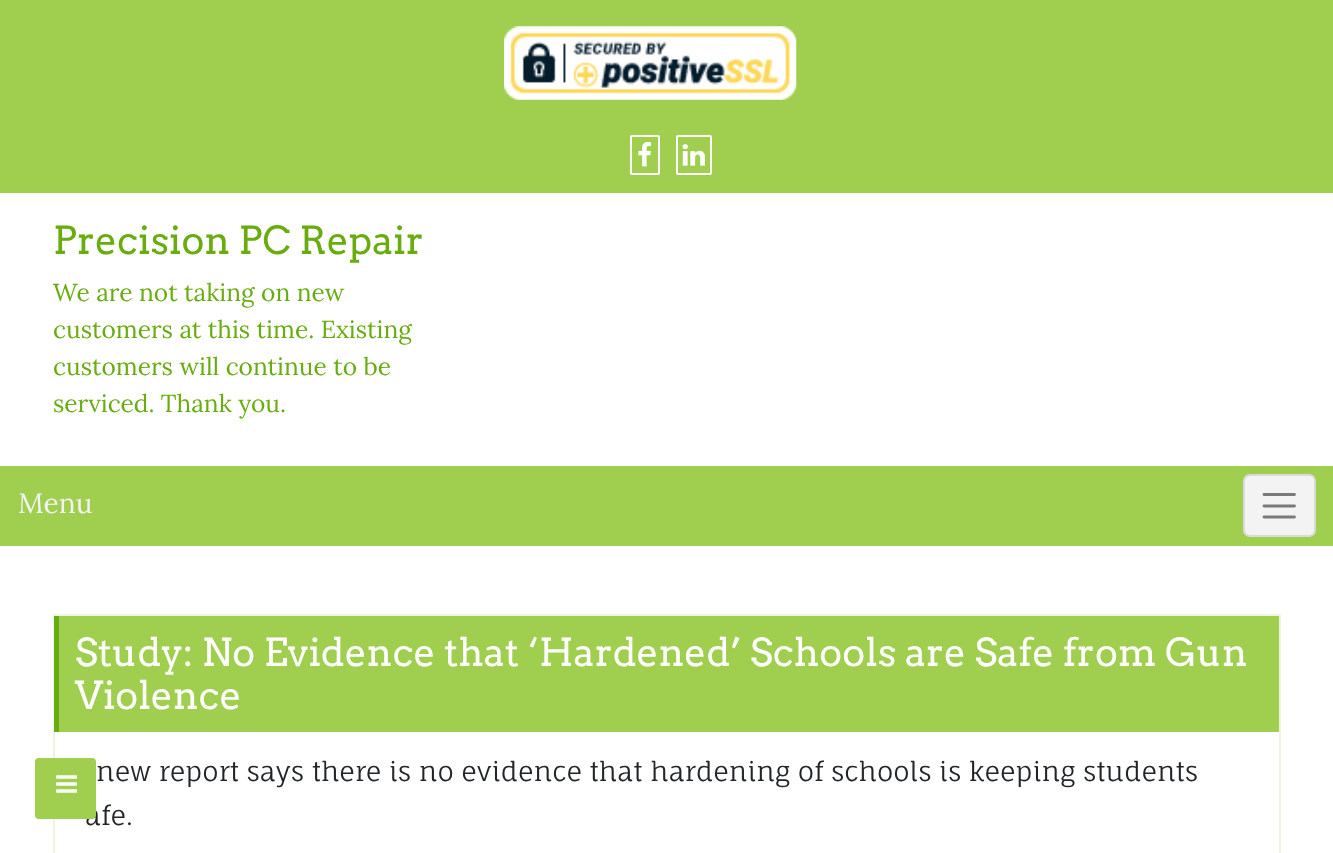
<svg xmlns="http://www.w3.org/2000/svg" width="1333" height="853">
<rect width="100%" height="100%" fill="#fff"/>
<rect width="1333" height="193" fill="#a0ce4e"/>
<image x="504" y="26" width="293" height="74" href="media/1.png"/>
<rect x="631" y="136" width="28" height="38" rx="1" fill="none" stroke="#fff" stroke-width="2"/>
<image x="638" y="142" width="14" height="25" href="media/2.png"/>
<rect x="677" y="136" width="34" height="38" rx="1" fill="none" stroke="#fff" stroke-width="2"/>
<image x="682" y="144" width="23" height="22" href="media/3.png"/>
<text x="53" y="254" style="font-family:Arvo;font-size:38.5px;fill:#68ac10">Precision PC Repair</text>
<text x="53" y="301" style="font-family:Lora;font-size:24.5px;fill:#68ac10">We are not taking on new</text>
<text x="53" y="338" style="font-family:Lora;font-size:24.5px;fill:#68ac10">customers at this time. Existing</text>
<text x="53" y="375" style="font-family:Lora;font-size:24.5px;fill:#68ac10">customers will continue to be</text>
<text x="53" y="412" style="font-family:Lora;font-size:24.5px;fill:#68ac10">serviced. Thank you.</text>
<rect y="466" width="1333" height="80" fill="#a0ce4e"/>
<text x="18" y="513" style="font-family:Lora;font-size:28px;fill:#f3f3f3">Menu</text>
<rect x="1243" y="474" width="73" height="63" rx="7" fill="#f3f3f3"/>
<rect x="1244" y="475" width="71" height="61" rx="6" fill="none" stroke="#0000001a" stroke-width="2"/>
<path d="M1264 494.5h30.5m-30.5 11.5h30.5m-30.5 11h30.5" fill="none" stroke="#7a7a7a" stroke-width="2.8" stroke-linecap="round"/>
<rect x="54" y="615" width="1226" height="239" fill="none" stroke="#edf5e2" stroke-width="2"/>
<text x="85" y="825" style="font-family:Fauna One;font-size:26.25px;fill:#212529">afe.</text>
<rect x="35" y="758" width="61" height="61" rx="4" fill="#a0ce4e"/>
<image x="56" y="775" width="21" height="18" href="media/4.png"/>
<rect x="59" y="616" width="1220" height="116" fill="#a0ce4e"/>
<rect x="54" y="616" width="5" height="116" fill="#68ac10"/>
<text x="75" y="666" style="font-family:Arvo;font-size:38.5px;fill:#fff">Study: No Evidence that ‘Hardened’ Schools are Safe from Gun</text>
<text x="75" y="709" style="font-family:Arvo;font-size:38.5px;fill:#fff">Violence</text>
<text x="96" y="781" style="font-family:Fauna One;font-size:26.25px;fill:#212529">new report says there is no evidence that hardening of schools is keeping students</text>
</svg>
